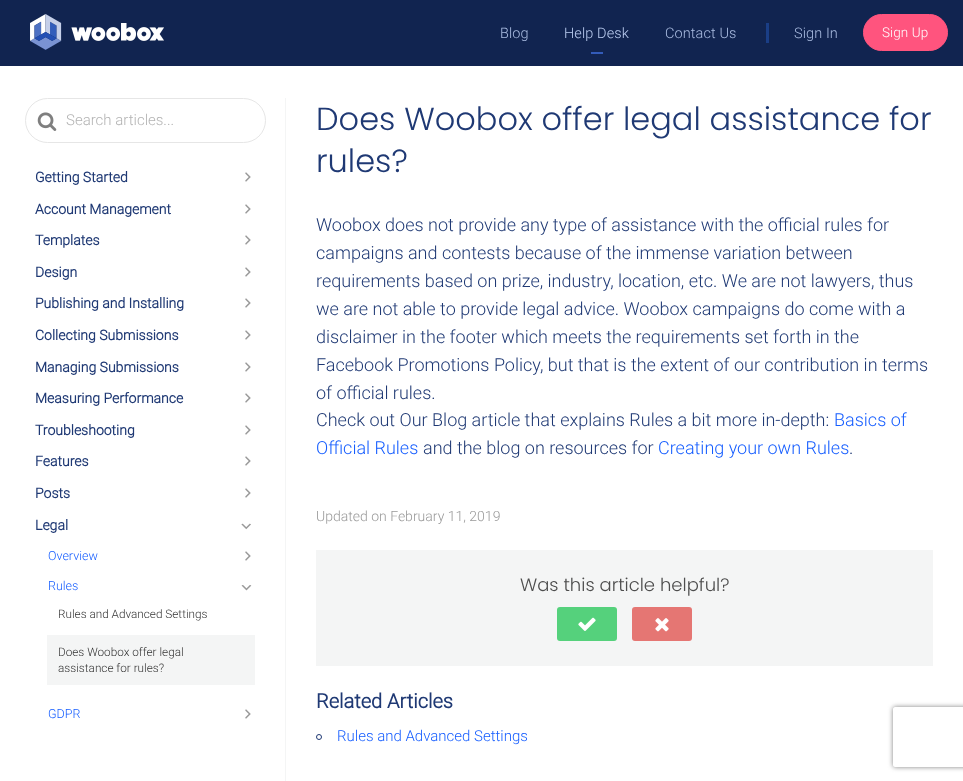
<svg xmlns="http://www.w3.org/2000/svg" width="963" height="781">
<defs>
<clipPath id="clip1"><path d="M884 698h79v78h-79zm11 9h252c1 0 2 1 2 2v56c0 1-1 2-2 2h-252c-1 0-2-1-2-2v-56c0-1 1-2 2-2z" clip-rule="evenodd"/></clipPath>
</defs>
<rect width="100%" height="100%" fill="#fff"/>
<rect width="963" height="66" fill="#112450"/>
<image x="30" y="14" width="134" height="36" href="media/1.png"/>
<text x="500" y="38" style="font-family:Roboto;font-size:14.5px;font-weight:300;letter-spacing:0.1px;fill:#abbde2">Blog</text>
<text x="564" y="38" style="font-family:Roboto;font-size:14.5px;font-weight:300;letter-spacing:0.1px;fill:#bccef2">Help Desk</text>
<rect x="591" y="52" width="12" height="2" fill="#335bb9"/>
<text x="665" y="38" style="font-family:Roboto;font-size:14.5px;font-weight:300;letter-spacing:0.1px;fill:#abbde2">Contact Us</text>
<rect x="766" y="23" width="3" height="20" fill="#1a3e86"/>
<text x="794" y="38" style="font-family:Roboto;font-size:14.5px;font-weight:300;letter-spacing:0.1px;fill:#abbde2">Sign In</text>
<rect x="863.5" y="14.5" width="84" height="36" rx="18" fill="#ff547e" stroke="#ff547e"/>
<text x="882" y="37" style="font-family:Roboto;font-size:13.5px;font-weight:300;letter-spacing:0.1px;fill:#fff">Sign Up</text>
<rect x="285" y="98" width="1" height="683" fill="#f4f5f5"/>
<text x="35" y="182" style="font-family:Roboto;font-size:14px;font-weight:bold;fill:#1f3974">Getting Started</text>
<image x="245" y="172" width="6" height="10" href="media/2.png"/>
<text x="35" y="214" style="font-family:Roboto;font-size:14px;font-weight:bold;fill:#1f3974">Account Management</text>
<image x="245" y="204" width="6" height="10" href="media/2.png"/>
<text x="35" y="245" style="font-family:Roboto;font-size:14px;font-weight:bold;fill:#1f3974">Templates</text>
<image x="245" y="235" width="6" height="10" href="media/2.png"/>
<text x="35" y="277" style="font-family:Roboto;font-size:14px;font-weight:bold;fill:#1f3974">Design</text>
<image x="245" y="267" width="6" height="10" href="media/2.png"/>
<text x="35" y="308" style="font-family:Roboto;font-size:14px;font-weight:bold;fill:#1f3974">Publishing and Installing</text>
<image x="245" y="298" width="6" height="10" href="media/2.png"/>
<text x="35" y="340" style="font-family:Roboto;font-size:14px;font-weight:bold;fill:#1f3974">Collecting Submissions</text>
<image x="245" y="330" width="6" height="10" href="media/2.png"/>
<text x="35" y="372" style="font-family:Roboto;font-size:14px;font-weight:bold;fill:#1f3974">Managing Submissions</text>
<image x="245" y="362" width="6" height="10" href="media/2.png"/>
<text x="35" y="403" style="font-family:Roboto;font-size:14px;font-weight:bold;fill:#1f3974">Measuring Performance</text>
<image x="245" y="393" width="6" height="10" href="media/2.png"/>
<text x="35" y="435" style="font-family:Roboto;font-size:14px;font-weight:bold;fill:#1f3974">Troubleshooting</text>
<image x="245" y="425" width="6" height="10" href="media/2.png"/>
<text x="35" y="466" style="font-family:Roboto;font-size:14px;font-weight:bold;fill:#1f3974">Features</text>
<image x="245" y="456" width="6" height="10" href="media/2.png"/>
<text x="35" y="498" style="font-family:Roboto;font-size:14px;font-weight:bold;fill:#1f3974">Posts</text>
<image x="245" y="488" width="6" height="10" href="media/2.png"/>
<text x="35" y="530" style="font-family:Roboto;font-size:14px;font-weight:bold;fill:#1f3974">Legal</text>
<image x="241" y="523" width="10" height="7" href="media/3.png"/>
<text x="48" y="560" style="font-family:Roboto;font-size:12.5px;font-weight:300;fill:#155dff">Overview</text>
<image x="245" y="551" width="6" height="10" href="media/2.png"/>
<text x="48" y="590" style="font-family:Roboto;font-size:12.5px;font-weight:300;fill:#155dff">Rules</text>
<image x="241" y="585" width="11" height="6" href="media/4.png"/>
<text x="58" y="618" style="font-family:Roboto;font-size:11.75px;font-weight:300;fill:#333">Rules and Advanced Settings</text>
<rect x="47" y="635" width="208" height="50" fill="#f4f5f5"/>
<text x="58" y="656" style="font-family:Roboto;font-size:11.75px;font-weight:300;fill:#333">Does Woobox offer legal</text>
<text x="58" y="672" style="font-family:Roboto;font-size:11.75px;font-weight:300;fill:#333">assistance for rules?</text>
<text x="48" y="718" style="font-family:Roboto;font-size:12.5px;font-weight:300;fill:#155dff">GDPR</text>
<image x="245" y="709" width="6" height="10" href="media/2.png"/>
<text x="316" y="130" style="font-family:Poppins;font-size:32px;font-weight:300;fill:#1f3974">Does Woobox offer legal assistance for</text>
<text x="316" y="172" style="font-family:Poppins;font-size:32px;font-weight:300;fill:#1f3974">rules?</text>
<text x="316" y="231" style="font-family:Roboto;font-size:18px;font-weight:300;fill:#1f3974">Woobox does not provide any type of assistance with the official rules for</text>
<text x="316" y="259" style="font-family:Roboto;font-size:18px;font-weight:300;fill:#1f3974">campaigns and contests because of the immense variation between</text>
<text x="316" y="287" style="font-family:Roboto;font-size:18px;font-weight:300;fill:#1f3974">requirements based on prize, industry, location, etc. We are not lawyers, thus</text>
<text x="316" y="315" style="font-family:Roboto;font-size:18px;font-weight:300;fill:#1f3974">we are not able to provide legal advice. Woobox campaigns do come with a</text>
<text x="316" y="343" style="font-family:Roboto;font-size:18px;font-weight:300;fill:#1f3974">disclaimer in the footer which meets the requirements set forth in the</text>
<text x="316" y="371" style="font-family:Roboto;font-size:18px;font-weight:300;fill:#1f3974">Facebook Promotions Policy, but that is the extent of our contribution in terms</text>
<text x="316" y="399" style="font-family:Roboto;font-size:18px;font-weight:300;fill:#1f3974">of official rules.</text>
<text x="316" y="426" style="font-family:Roboto;font-size:18px;font-weight:300;fill:#1f3974">Check out Our Blog article that explains Rules a bit more in-depth:</text>
<text x="834" y="426" style="font-family:Roboto;font-size:18px;font-weight:300;fill:#155dff">Basics of</text>
<text x="316" y="454" style="font-family:Roboto;font-size:18px;font-weight:300;fill:#155dff">Official Rules</text>
<text x="423" y="454" style="font-family:Roboto;font-size:18px;font-weight:300;fill:#1f3974">and the blog on resources for</text>
<text x="658" y="454" style="font-family:Roboto;font-size:18px;font-weight:300;fill:#155dff">Creating your own Rules</text>
<text x="849" y="454" style="font-family:Roboto;font-size:18px;font-weight:300;fill:#1f3974">.</text>
<text x="316" y="521" style="font-family:Roboto;font-size:14px;font-weight:300;fill:#999">Updated on February 11, 2019</text>
<rect x="316" y="550" width="617" height="116" fill="#f4f5f5"/>
<text x="520" y="591" style="font-family:Poppins;font-size:18px;font-weight:300;fill:#4d4d4d">Was this article helpful?</text>
<rect x="557" y="607" width="60" height="34" rx="3" fill="#55d17c"/>
<image x="578" y="617" width="18" height="14" href="media/5.png"/>
<rect x="632" y="607" width="60" height="34" rx="3" fill="#e57673"/>
<image x="655" y="618" width="14" height="14" href="media/6.png"/>
<text x="316" y="708" style="font-family:Roboto;font-size:20px;font-weight:bold;fill:#1f3974">Related Articles</text>
<circle cx="319" cy="737" r="2.5" fill="none" stroke="#1f3974"/>
<text x="337" y="741" style="font-family:Roboto;font-size:15px;font-weight:300;fill:#155dff">Rules and Advanced Settings</text>
<rect x="25.5" y="98.5" width="240" height="44" rx="22" fill="none" stroke="#e6e6e6"/>
<image x="37" y="112" width="20" height="19" href="media/7.png"/>
<text x="66" y="125" style="font-family:Roboto;font-size:15px;font-weight:300;fill:#b3b3b3">Search articles...</text>
<g clip-path="url(#clip1)">
<rect x="893" y="707" width="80" height="60" rx="2" fill="#808080" filter="blur(2.5px)"/>
</g>
</svg>
